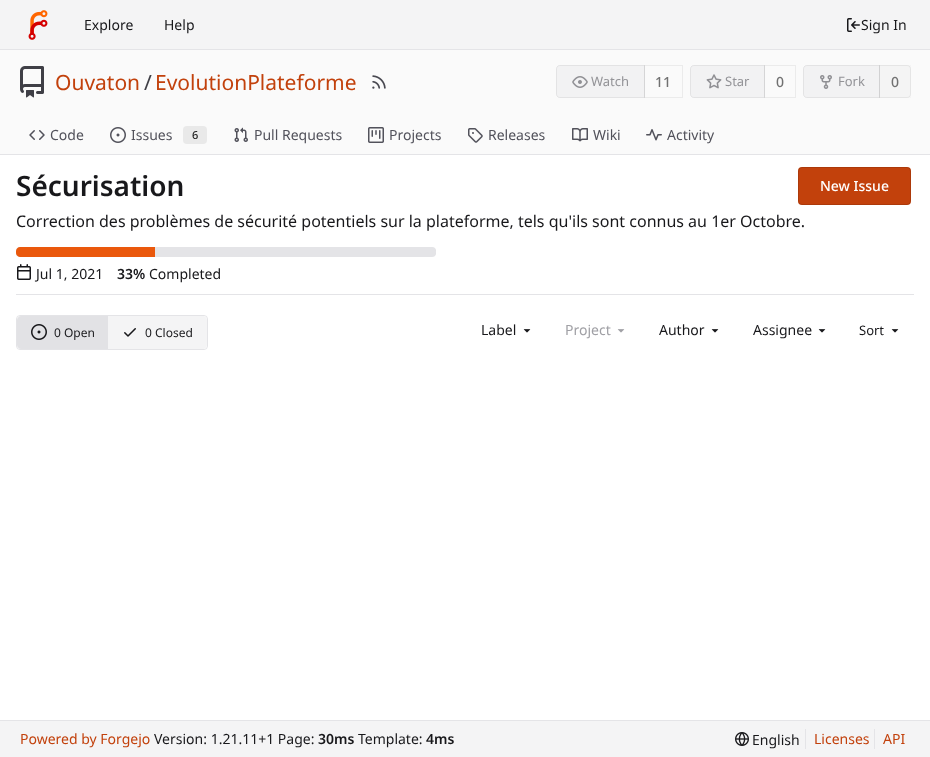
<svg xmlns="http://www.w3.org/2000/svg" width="930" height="757">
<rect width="100%" height="100%" fill="#fff"/>
<rect width="930" height="49" fill="#f4f4f5"/>
<rect y="49" width="930" height="1" fill="#e4e4e7"/>
<image x="28" y="10" width="20" height="30" href="media/1.png"/>
<text x="84" y="30" style="font-family:Noto Sans;font-size:14px;fill:#18181b">Explore</text>
<text x="164" y="30" style="font-family:Noto Sans;font-size:14px;fill:#18181b">Help</text>
<image x="847" y="18" width="13" height="14" href="media/2.png"/>
<text x="861" y="30" style="font-family:Noto Sans;font-size:14px;fill:#18181b">Sign In</text>
<rect y="50" width="930" height="104" fill="#fafafa"/>
<image x="20" y="66" width="24" height="32" href="media/3.png"/>
<text x="55" y="90" style="font-family:Noto Sans;font-size:21px;fill:#c2410c">Ouvaton</text>
<text x="144" y="90" style="font-family:Noto Sans;font-size:21px;fill:#3f3f46">/</text>
<text x="155" y="90" style="font-family:Noto Sans;font-size:21px;fill:#c2410c">EvolutionPlateforme</text>
<image x="372" y="75" width="14" height="14" href="media/4.png"/>
<path d="M560 65h85v33h-85c-2 0-4-2-4-4v-25c0-2 2-4 4-4z" fill="#f2f2f3"/>
<path d="M560 65.5h84.5v32h-84.5c-2 0-3.5-1.5-3.5-3.5v-25c0-2 1.5-3.5 3.5-3.5z" fill="none" stroke="#7171711c"/>
<image x="572" y="76" width="16" height="12" href="media/5.png"/>
<text x="591" y="86" style="font-family:Noto Sans;font-size:13px;fill:#939397">Watch</text>
<rect x="644.5" y="65.5" width="38" height="32" fill="none" stroke="#0000000f"/>
<text x="655" y="87" style="font-family:Noto Sans;font-size:14px;font-weight:500;fill:#717171">11</text>
<path d="M694 65h71v33h-71c-2 0-4-2-4-4v-25c0-2 2-4 4-4z" fill="#f2f2f3"/>
<path d="M694 65.5h70.5v32h-70.5c-2 0-3.5-1.5-3.5-3.5v-25c0-2 1.5-3.5 3.5-3.5z" fill="none" stroke="#7171711c"/>
<image x="706" y="74" width="16" height="15" href="media/6.png"/>
<text x="725" y="86" style="font-family:Noto Sans;font-size:13px;fill:#939397">Star</text>
<rect x="764.5" y="65.5" width="31" height="32" fill="none" stroke="#0000000f"/>
<text x="776" y="87" style="font-family:Noto Sans;font-size:14px;font-weight:500;fill:#717171">0</text>
<path d="M807 65h73v33h-73c-2 0-4-2-4-4v-25c0-2 2-4 4-4z" fill="#f2f2f3"/>
<path d="M807 65.5h72.5v32h-72.5c-2 0-3.5-1.5-3.5-3.5v-25c0-2 1.5-3.5 3.5-3.5z" fill="none" stroke="#7171711c"/>
<image x="820" y="75" width="12" height="14" href="media/7.png"/>
<text x="838" y="86" style="font-family:Noto Sans;font-size:13px;fill:#939397">Fork</text>
<rect x="879" y="65" width="32" height="33" fill="#7171710a"/>
<path d="M879.5 65.5h27.5c2 0 3.5 1.5 3.5 3.5v25c0 2-1.5 3.5-3.5 3.5h-27.5z" fill="none" stroke="#7171711c"/>
<text x="891" y="87" style="font-family:Noto Sans;font-size:14px;font-weight:500;fill:#717171">0</text>
<image x="29" y="130" width="16" height="10" href="media/8.png"/>
<text x="50" y="140" style="font-family:Noto Sans;font-size:14px;fill:#52525b">Code</text>
<image x="110" y="127" width="16" height="16" href="media/9.png"/>
<text x="131" y="140" style="font-family:Noto Sans;font-size:14px;fill:#52525b">Issues</text>
<rect x="183" y="126" width="24" height="18" rx="4" fill="#e9e9e9"/>
<text x="192" y="139" style="font-family:Noto Sans;font-size:11px;font-weight:500;fill:#232323">6</text>
<image x="234" y="127" width="14" height="15" href="media/10.png"/>
<text x="254" y="140" style="font-family:Noto Sans;font-size:14px;fill:#52525b">Pull Requests</text>
<image x="368" y="127" width="16" height="16" href="media/11.png"/>
<text x="389" y="140" style="font-family:Noto Sans;font-size:14px;fill:#52525b">Projects</text>
<image x="468" y="128" width="15" height="15" href="media/12.png"/>
<text x="488" y="140" style="font-family:Noto Sans;font-size:14px;fill:#52525b">Releases</text>
<image x="572" y="128" width="16" height="14" href="media/13.png"/>
<text x="593" y="140" style="font-family:Noto Sans;font-size:14px;fill:#52525b">Wiki</text>
<image x="646" y="129" width="16" height="12" href="media/14.png"/>
<text x="667" y="140" style="font-family:Noto Sans;font-size:14px;fill:#52525b">Activity</text>
<rect y="154" width="930" height="1" fill="#e4e4e7"/>
<text x="16" y="196" style="font-family:Noto Sans;font-size:28px;font-weight:600;fill:#18181b">Sécurisation</text>
<rect x="798" y="167" width="113" height="38" rx="4" fill="#c2410c"/>
<rect x="798.5" y="167.5" width="112" height="37" rx="3.5" fill="none" stroke="#0000001c"/>
<text x="820" y="191" style="font-family:Noto Sans;font-size:14px;font-weight:500;fill:#fff">New Issue</text>
<text x="16" y="227" style="font-family:Noto Sans;font-size:16px;fill:#18181b">Correction des problèmes de sécurité potentiels sur la plateforme, tels qu'ils sont connus au 1er Octobre.</text>
<rect x="16.5" y="248.5" width="419" height="7" rx="3.5" fill="none" stroke="#b2b2b2"/>
<rect x="16" y="247" width="420" height="10" rx="4" fill="#e4e4e7"/>
<path d="M20 247h135v10h-135c-2 0-4-2-4-4v-2c0-2 2-4 4-4z" fill="#ea580c"/>
<image x="17" y="264" width="14" height="16" href="media/15.png"/>
<text x="36" y="279" style="font-family:Noto Sans;font-size:14px;fill:#18181b">Jul 1, 2021</text>
<text x="117" y="279" style="font-family:Noto Sans;font-size:14px;font-weight:600;fill:#18181b">33%</text>
<text x="149" y="279" style="font-family:Noto Sans;font-size:14px;fill:#18181b">Completed</text>
<rect x="16" y="294" width="898" height="1" fill="#e4e4e7"/>
<rect x="16.5" y="315.5" width="191" height="34" rx="3.5" fill="none" stroke="#e4e4e7"/>
<path d="M21 316h87v33h-87c-2 0-4-2-4-4v-25c0-2 2-4 4-4z" fill="#d4d4d8ab"/>
<image x="31" y="324" width="16" height="16" href="media/16.png"/>
<text x="54" y="337" style="font-family:Noto Sans;font-size:12px;fill:#18181b">0 Open</text>
<path d="M108 316h95c2 0 4 2 4 4v25c0 2-2 4-4 4h-95z" fill="#f4f4f5"/>
<image x="124" y="328" width="12" height="9" href="media/17.png"/>
<text x="145" y="337" style="font-family:Noto Sans;font-size:12px;fill:#18181b">0 Closed</text>
<text x="481" y="335" style="font-family:Noto Sans;font-size:14px;fill:#18181b">Label</text>
<image x="523" y="329" width="8" height="4" href="media/18.png"/>
<text x="565" y="335" style="font-family:Noto Sans;font-size:14px;fill:#a0a0a5">Project</text>
<image x="617" y="329" width="8" height="4" href="media/19.png"/>
<text x="659" y="335" style="font-family:Noto Sans;font-size:14px;fill:#18181b">Author</text>
<image x="711" y="329" width="8" height="4" href="media/18.png"/>
<text x="753" y="335" style="font-family:Noto Sans;font-size:14px;fill:#18181b">Assignee</text>
<image x="818" y="329" width="8" height="4" href="media/18.png"/>
<text x="859" y="335" style="font-family:Noto Sans;font-size:13px;fill:#18181b">Sort</text>
<image x="891" y="329" width="8" height="4" href="media/18.png"/>
<rect y="721" width="930" height="36" fill="#f4f4f5"/>
<rect y="720" width="930" height="1" fill="#e4e4e7"/>
<text x="20" y="744" style="font-family:Noto Sans;font-size:14px;fill:#c2410c">Powered by Forgejo</text>
<text x="154" y="744" style="font-family:Noto Sans;font-size:14px;fill:#18181b">Version: 1.21.11+1 Page:</text>
<text x="318" y="744" style="font-family:Noto Sans;font-size:14px;font-weight:600;fill:#18181b">30ms</text>
<text x="358" y="744" style="font-family:Noto Sans;font-size:14px;fill:#18181b">Template:</text>
<text x="426" y="744" style="font-family:Noto Sans;font-size:14px;font-weight:600;fill:#18181b">4ms</text>
<image x="735" y="732" width="14" height="14" href="media/20.png"/>
<text x="752" y="745" style="font-family:Noto Sans;font-size:14px;fill:#18181b">English</text>
<rect x="805" y="729" width="1" height="20" fill="#e4e4e7"/>
<text x="814" y="744" style="font-family:Noto Sans;font-size:14px;fill:#c2410c">Licenses</text>
<rect x="874" y="729" width="1" height="20" fill="#e4e4e7"/>
<text x="883" y="744" style="font-family:Noto Sans;font-size:14px;fill:#c2410c">API</text>
</svg>
